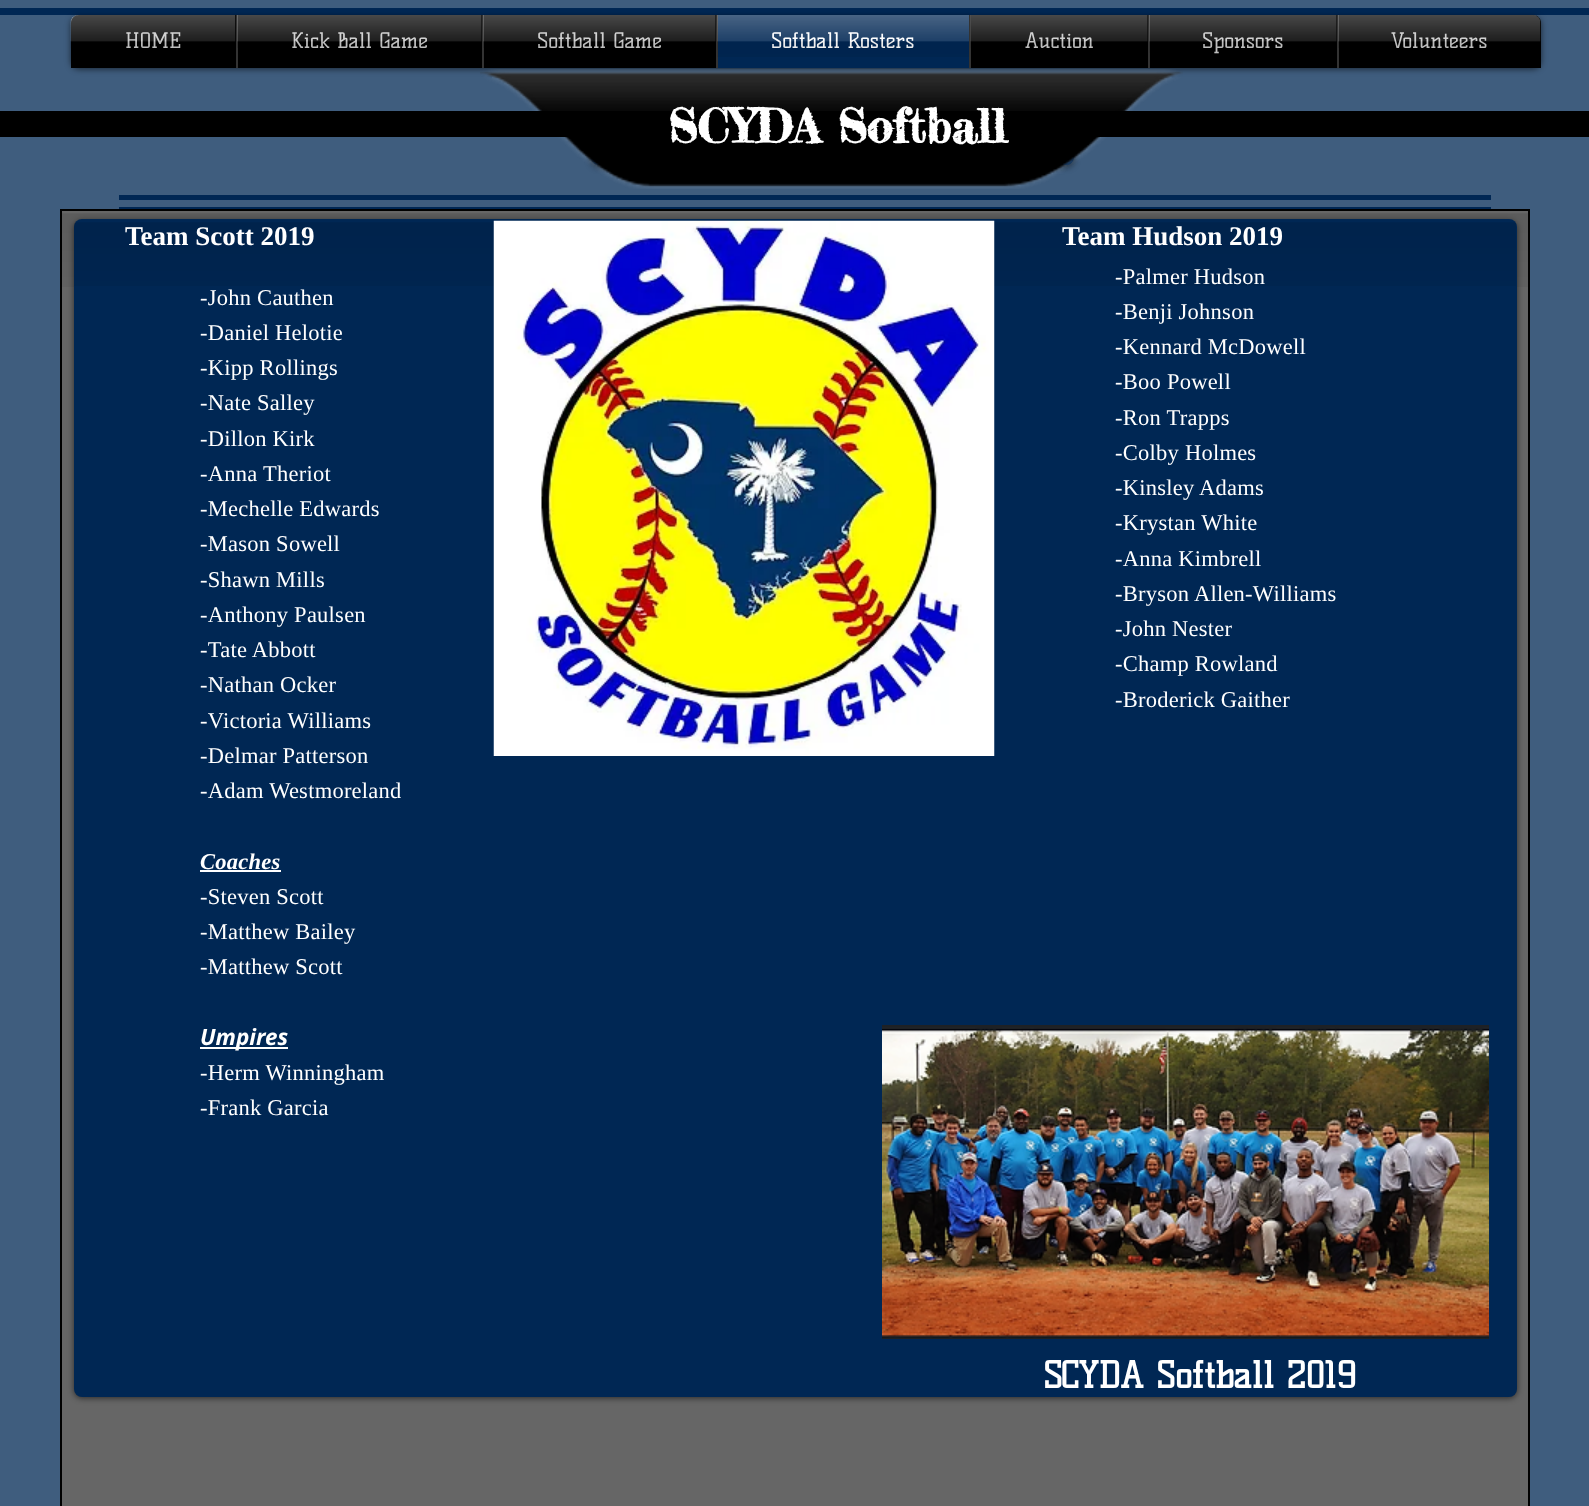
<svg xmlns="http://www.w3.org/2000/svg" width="1589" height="1506">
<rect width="100%" height="100%" fill="#3f5d7e"/>
<rect y="8" width="1589" height="7" fill="#002754"/>
<rect x="71" y="17" width="1470" height="52" rx="8" fill="#00000099" filter="blur(3px)"/>
<image x="70" y="15" width="1471" height="26" href="media/1.png"/>
<path d="M79 15h157v53h-165v-45c0-4.5 3.5-8 8-8z" fill="#000"/>
<text x="125" y="48" style="font-family:Kelly Slab;font-size:21px;fill:#cacaca">HOME</text>
<image x="70" y="15" width="166" height="33" href="media/2.png"/>
<rect x="238" y="15" width="244" height="53" fill="#000"/>
<rect x="236" y="15" width="2" height="53" fill="#333"/>
<text x="291" y="48" style="font-family:Kelly Slab;font-size:21px;fill:#cacaca">Kick Ball Game</text>
<image x="237" y="15" width="245" height="33" href="media/3.png"/>
<rect x="484" y="15" width="232" height="53" fill="#000"/>
<rect x="482" y="15" width="2" height="53" fill="#333"/>
<text x="537" y="48" style="font-family:Kelly Slab;font-size:21px;fill:#cacaca">Softball Game</text>
<image x="483" y="15" width="233" height="33" href="media/4.png"/>
<rect x="718" y="15" width="251" height="53" fill="#002754"/>
<rect x="716" y="15" width="2" height="53" fill="#333"/>
<text x="771" y="48" style="font-family:Kelly Slab;font-size:21px;fill:#fff">Softball Rosters</text>
<image x="717" y="15" width="252" height="42" href="media/5.png"/>
<rect x="971" y="15" width="177" height="53" fill="#000"/>
<rect x="969" y="15" width="2" height="53" fill="#333"/>
<text x="1025" y="48" style="font-family:Kelly Slab;font-size:21px;fill:#cacaca">Auction</text>
<image x="970" y="15" width="178" height="33" href="media/6.png"/>
<rect x="1150" y="15" width="187" height="53" fill="#000"/>
<rect x="1148" y="15" width="2" height="53" fill="#333"/>
<text x="1202" y="48" style="font-family:Kelly Slab;font-size:21px;fill:#cacaca">Sponsors</text>
<image x="1149" y="15" width="188" height="38" href="media/7.png"/>
<path d="M1337 15h196c4.5 0 8 3.5 8 8v45h-204z" fill="#000"/>
<rect x="1337" y="15" width="2" height="53" fill="#333"/>
<text x="1391" y="48" style="font-family:Kelly Slab;font-size:21px;fill:#cacaca">Volunteers</text>
<image x="1338" y="15" width="203" height="33" href="media/8.png"/>
<rect x="591" y="83" width="483" height="84" rx="8" fill="#00000099" filter="blur(3px)"/>
<path d="M591 81h475c4.5 0 8 3.5 8 8v68c0 4.5-3.5 8-8 8h-467c-4.5 0-8-3.5-8-8z" fill="#002754"/>
<image x="480" y="69" width="703" height="120" href="media/9.png"/>
<rect y="111" width="1589" height="26" fill="#000"/>
<text x="668" y="143" style="font-family:Fredericka the Great;font-size:46.5px;font-weight:bold;fill:#fff">SCYDA Softball</text>
<rect x="119" y="195" width="1372" height="5" fill="#002754"/>
<rect x="119" y="207" width="1372" height="2" fill="#002754"/>
<rect x="62" y="211" width="1466" height="1295" fill="#666"/>
<image x="62" y="213" width="1466" height="74" href="media/10.png"/>
<rect x="61" y="210" width="1468" height="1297" fill="none" stroke="#000" stroke-width="2"/>
<rect x="74" y="221" width="1443" height="1177" rx="8" fill="#00000099" filter="blur(3px)"/>
<rect x="74" y="219" width="1443" height="1178" rx="8" fill="#002754"/>
<image x="74" y="222" width="1442" height="64" href="media/11.png"/>
<text x="125" y="245" style="font-family:Liberation Serif;font-size:27px;font-weight:bold;fill:#fff">Team Scott 2019</text>
<image x="493" y="220" width="502" height="536" href="media/12.png"/>
<text x="1062" y="245" style="font-family:Liberation Serif;font-size:27px;font-weight:bold;fill:#fff">Team Hudson 2019</text>
<text x="200" y="305" style="font-family:Liberation Serif;font-size:22.5px;letter-spacing:0.25px;fill:#fff">-John Cauthen</text>
<text x="200" y="340" style="font-family:Liberation Serif;font-size:22.5px;letter-spacing:0.25px;fill:#fff">-Daniel Helotie</text>
<text x="200" y="375" style="font-family:Liberation Serif;font-size:22.5px;letter-spacing:0.25px;fill:#fff">-Kipp Rollings</text>
<text x="200" y="410" style="font-family:Liberation Serif;font-size:22.5px;letter-spacing:0.25px;fill:#fff">-Nate Salley</text>
<text x="200" y="446" style="font-family:Liberation Serif;font-size:22.5px;letter-spacing:0.25px;fill:#fff">-Dillon Kirk</text>
<text x="200" y="481" style="font-family:Liberation Serif;font-size:22.5px;letter-spacing:0.25px;fill:#fff">-Anna Theriot</text>
<text x="200" y="516" style="font-family:Liberation Serif;font-size:22.5px;letter-spacing:0.25px;fill:#fff">-Mechelle Edwards</text>
<text x="200" y="551" style="font-family:Liberation Serif;font-size:22.5px;letter-spacing:0.25px;fill:#fff">-Mason Sowell</text>
<text x="200" y="587" style="font-family:Liberation Serif;font-size:22.5px;letter-spacing:0.25px;fill:#fff">-Shawn Mills</text>
<text x="200" y="622" style="font-family:Liberation Serif;font-size:22.5px;letter-spacing:0.25px;fill:#fff">-Anthony Paulsen</text>
<text x="200" y="657" style="font-family:Liberation Serif;font-size:22.5px;letter-spacing:0.25px;fill:#fff">-Tate Abbott</text>
<text x="200" y="692" style="font-family:Liberation Serif;font-size:22.5px;letter-spacing:0.25px;fill:#fff">-Nathan Ocker</text>
<text x="200" y="728" style="font-family:Liberation Serif;font-size:22.5px;letter-spacing:0.25px;fill:#fff">-Victoria Williams</text>
<text x="200" y="763" style="font-family:Liberation Serif;font-size:22.5px;letter-spacing:0.25px;fill:#fff">-Delmar Patterson</text>
<text x="200" y="798" style="font-family:Liberation Serif;font-size:22.5px;letter-spacing:0.25px;fill:#fff">-Adam Westmoreland</text>
<text x="200" y="869" style="font-family:Liberation Serif;font-size:22.5px;font-weight:bold;font-style:italic;letter-spacing:0.25px;fill:#fff">Coaches</text>
<rect x="200" y="870" width="81" height="2" fill="#fff"/>
<text x="200" y="904" style="font-family:Liberation Serif;font-size:22.5px;letter-spacing:0.25px;fill:#fff">-Steven Scott</text>
<text x="200" y="939" style="font-family:Liberation Serif;font-size:22.5px;letter-spacing:0.25px;fill:#fff">-Matthew Bailey</text>
<text x="200" y="974" style="font-family:Liberation Serif;font-size:22.5px;letter-spacing:0.25px;fill:#fff">-Matthew Scott</text>
<rect x="200" y="1047" width="88" height="2" fill="#fff"/>
<text x="200" y="1045" style="font-family:Open Sans;font-size:22.5px;font-weight:bold;font-style:italic;fill:#fff">Umpires</text>
<text x="200" y="1080" style="font-family:Liberation Serif;font-size:22.5px;letter-spacing:0.25px;fill:#fff">-Herm Winningham</text>
<text x="200" y="1115" style="font-family:Liberation Serif;font-size:22.5px;letter-spacing:0.25px;fill:#fff">-Frank Garcia</text>
<text x="1115" y="284" style="font-family:Liberation Serif;font-size:22.5px;letter-spacing:0.25px;fill:#fff">-Palmer Hudson</text>
<text x="1115" y="319" style="font-family:Liberation Serif;font-size:22.5px;letter-spacing:0.25px;fill:#fff">-Benji Johnson</text>
<text x="1115" y="354" style="font-family:Liberation Serif;font-size:22.5px;letter-spacing:0.25px;fill:#fff">-Kennard McDowell</text>
<text x="1115" y="389" style="font-family:Liberation Serif;font-size:22.5px;letter-spacing:0.25px;fill:#fff">-Boo Powell</text>
<text x="1115" y="425" style="font-family:Liberation Serif;font-size:22.5px;letter-spacing:0.25px;fill:#fff">-Ron Trapps</text>
<text x="1115" y="460" style="font-family:Liberation Serif;font-size:22.5px;letter-spacing:0.25px;fill:#fff">-Colby Holmes</text>
<text x="1115" y="495" style="font-family:Liberation Serif;font-size:22.5px;letter-spacing:0.25px;fill:#fff">-Kinsley Adams</text>
<text x="1115" y="530" style="font-family:Liberation Serif;font-size:22.5px;letter-spacing:0.25px;fill:#fff">-Krystan White</text>
<text x="1115" y="566" style="font-family:Liberation Serif;font-size:22.5px;letter-spacing:0.25px;fill:#fff">-Anna Kimbrell</text>
<text x="1115" y="601" style="font-family:Liberation Serif;font-size:22.5px;letter-spacing:0.25px;fill:#fff">-Bryson Allen-Williams</text>
<text x="1115" y="636" style="font-family:Liberation Serif;font-size:22.5px;letter-spacing:0.25px;fill:#fff">-John Nester</text>
<text x="1115" y="671" style="font-family:Liberation Serif;font-size:22.5px;letter-spacing:0.25px;fill:#fff">-Champ Rowland</text>
<text x="1115" y="707" style="font-family:Liberation Serif;font-size:22.5px;letter-spacing:0.25px;fill:#fff">-Broderick Gaither</text>
<image x="882" y="1025" width="608" height="314" href="media/13.png"/>
<text x="1043" y="1388" style="font-family:Kelly Slab;font-size:36px;font-weight:bold;fill:#fff">SCYDA Softball 2019</text>
</svg>
